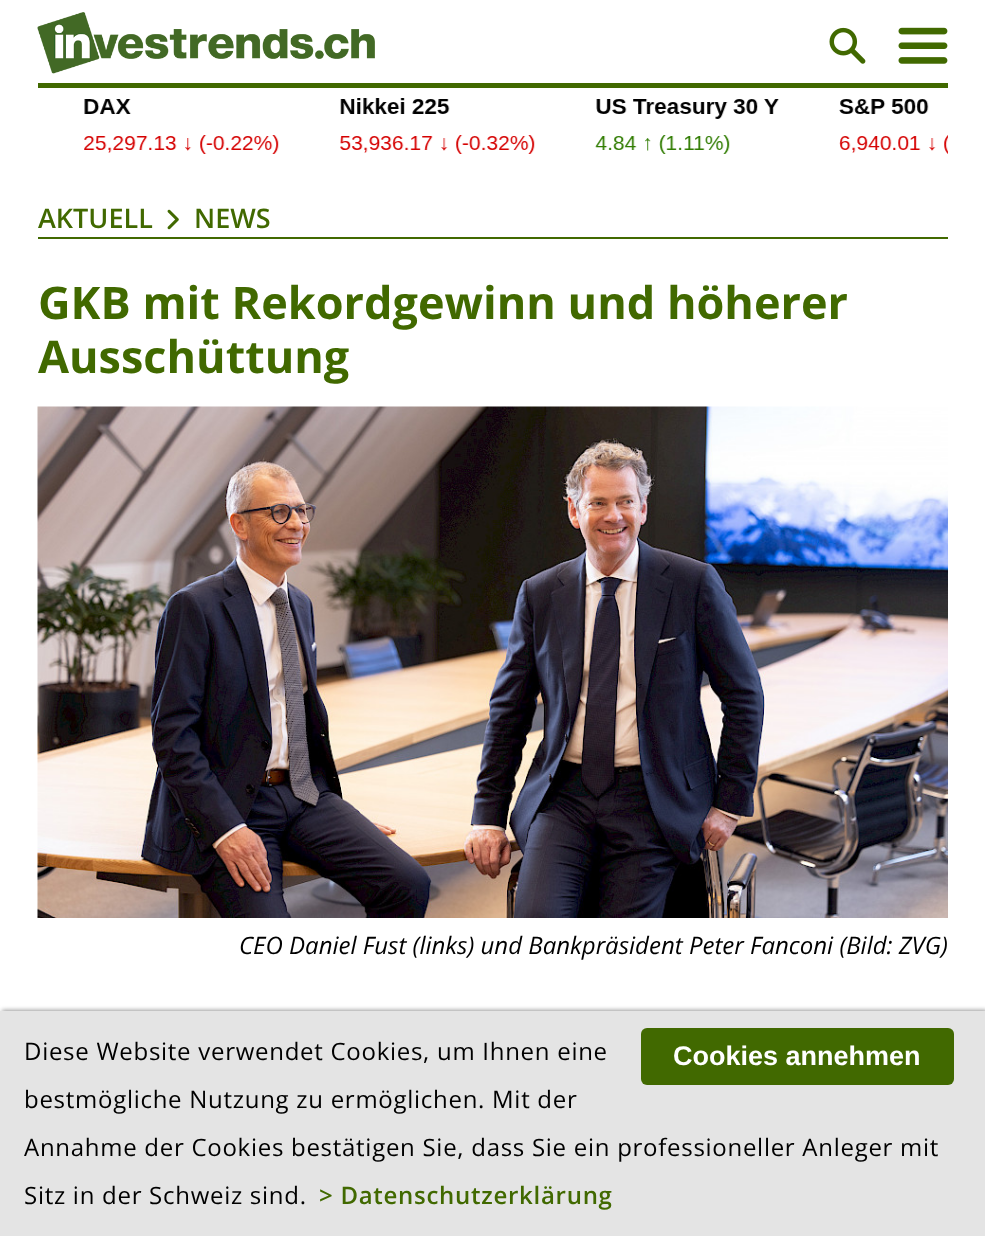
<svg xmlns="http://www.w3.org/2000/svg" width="985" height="1236">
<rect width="100%" height="100%" fill="#fff"/>
<rect x="38" y="83" width="910" height="5" fill="#416900"/>
<image x="37" y="12" width="338" height="62" href="media/1.png"/>
<image x="829" y="27" width="37" height="37" href="media/2.png"/>
<image x="898" y="27" width="50" height="37" href="media/3.png"/>
<image x="84" y="98" width="864" height="56" href="media/4.png"/>
<rect x="38" y="237" width="910" height="2" fill="#416900"/>
<text x="38" y="228" style="font-family:Open Sans;font-size:27px;font-weight:600;fill:#416900">AKTUELL</text>
<image x="167" y="209" width="12" height="21" href="media/5.png"/>
<text x="194" y="228" style="font-family:Open Sans;font-size:27px;font-weight:600;fill:#416900">NEWS</text>
<text x="38" y="319" style="font-family:Open Sans;font-size:45px;font-weight:bold;fill:#416900">GKB mit Rekordgewinn und höherer</text>
<text x="38" y="373" style="font-family:Open Sans;font-size:45px;font-weight:bold;fill:#416900">Ausschüttung</text>
<image x="37" y="406" width="911" height="512" href="media/6.png"/>
<text x="239" y="954" style="font-family:Open Sans;font-size:24px;font-style:italic;fill:#000">CEO Daniel Fust (links) und Bankpräsident Peter Fanconi (Bild: ZVG)</text>
<rect x="2" y="1010" width="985" height="225" fill="#9a9a9a" filter="blur(2px)"/>
<rect y="1011" width="985" height="225" fill="#e4e4e4"/>
<text x="24" y="1060" style="font-family:Open Sans;font-size:24px;letter-spacing:0.72px;fill:#000">Diese Website verwendet Cookies, um Ihnen eine</text>
<text x="24" y="1108" style="font-family:Open Sans;font-size:24px;letter-spacing:0.72px;fill:#000">bestmögliche Nutzung zu ermöglichen. Mit der</text>
<text x="24" y="1156" style="font-family:Open Sans;font-size:24px;letter-spacing:0.72px;fill:#000">Annahme der Cookies bestätigen Sie, dass Sie ein professioneller Anleger mit</text>
<text x="24" y="1204" style="font-family:Open Sans;font-size:24px;letter-spacing:0.72px;fill:#000">Sitz in der Schweiz sind.</text>
<text x="319" y="1204" style="font-family:Open Sans;font-size:24px;font-weight:600;letter-spacing:0.72px;fill:#416900">&gt; Datenschutzerklärung</text>
<rect x="641" y="1028" width="313" height="57" rx="6" fill="#416900"/>
<text x="673" y="1065" style="font-family:Liberation Sans;font-size:27px;font-weight:bold;fill:#fff">Cookies annehmen</text>
</svg>
